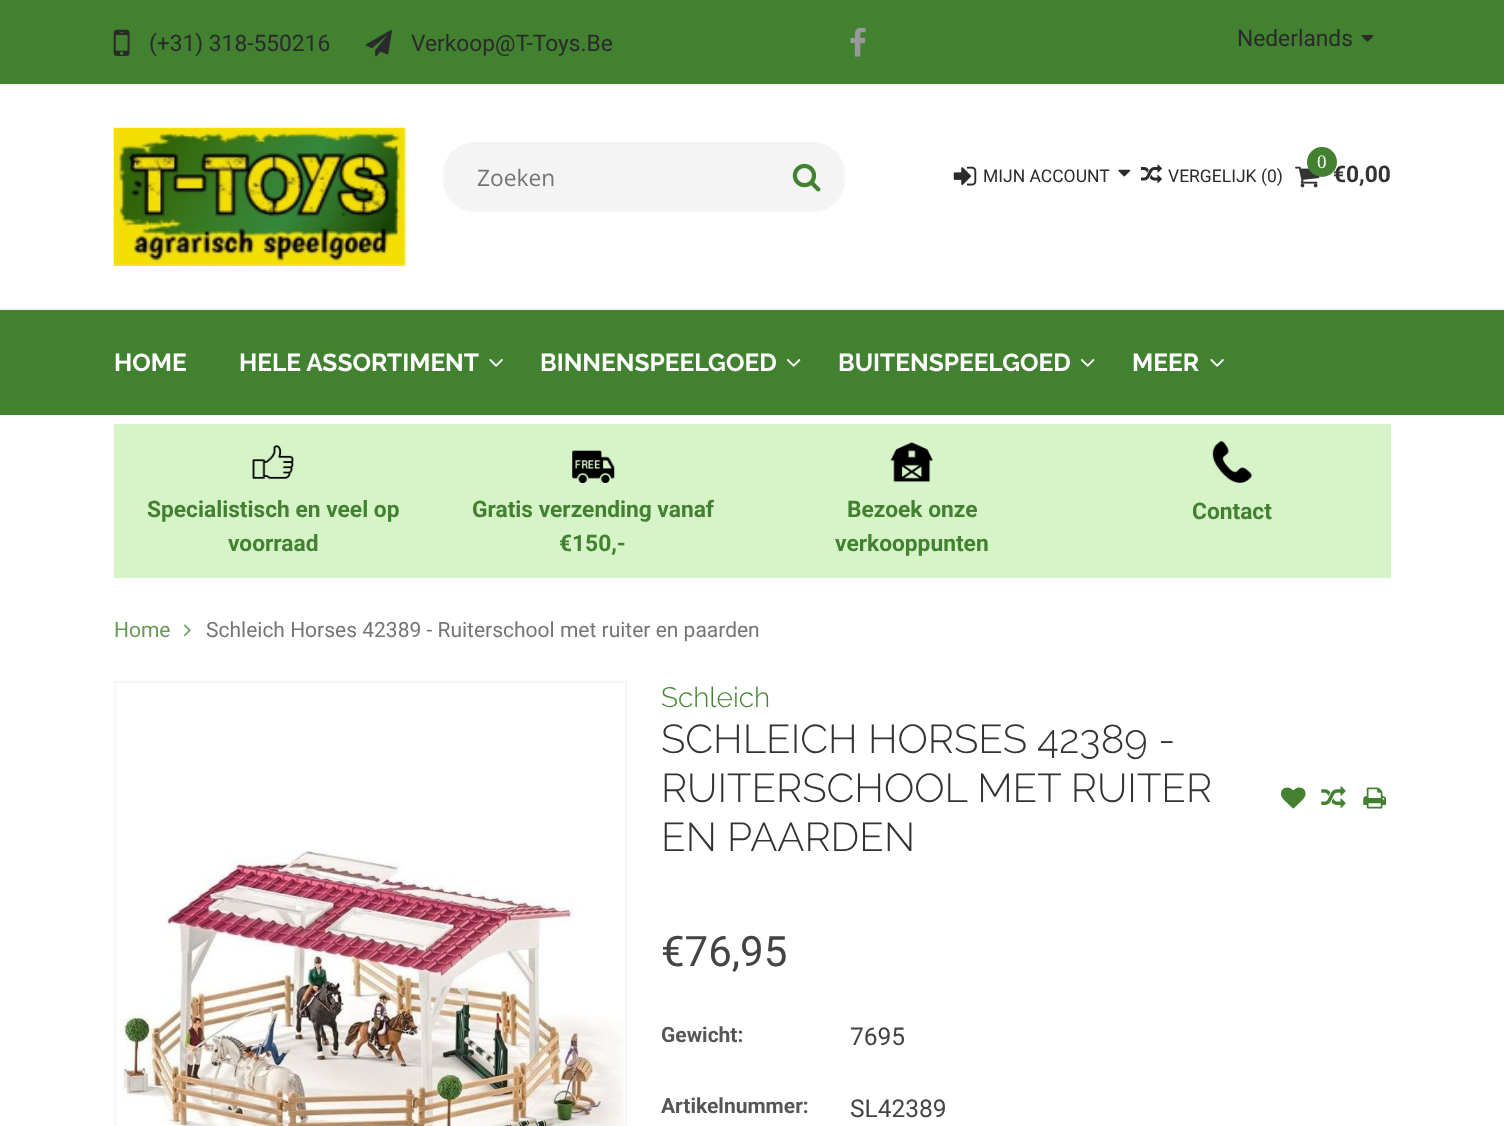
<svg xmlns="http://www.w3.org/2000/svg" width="1504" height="1126">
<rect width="100%" height="100%" fill="#fff"/>
<rect width="1504" height="84" fill="#418130"/>
<rect y="84" width="1504" height="2" fill="#f3f3f3"/>
<image x="113" y="29" width="17" height="27" href="media/1.png"/>
<text x="149" y="51" style="font-family:Roboto;font-size:22.75px;fill:#2a2a2a">(+31) 318-550216</text>
<image x="365" y="30" width="27" height="27" href="media/2.png"/>
<text x="411" y="51" style="font-family:Roboto;font-size:22.75px;fill:#2a2a2a">Verkoop@T-Toys.Be</text>
<image x="850" y="28" width="16" height="29" href="media/3.png"/>
<text x="1237" y="46" style="font-family:Roboto;font-size:22.75px;fill:#2a2a2a">Nederlands</text>
<image x="1361" y="35" width="13" height="7" href="media/4.png"/>
<image x="113" y="127" width="293" height="139" href="media/5.png"/>
<rect x="443" y="142" width="402" height="70" rx="32" fill="#f4f4f4"/>
<text x="477" y="186" style="font-family:Open Sans;font-size:22.75px;fill:#757575">Zoeken</text>
<image x="792" y="163" width="29" height="29" href="media/6.png"/>
<image x="953" y="166" width="24" height="20" href="media/7.png"/>
<text x="983" y="182" style="font-family:Roboto;font-size:17.5px;fill:#2a2a2a">MIJN ACCOUNT</text>
<image x="1118" y="169" width="13" height="8" href="media/8.png"/>
<image x="1141" y="164" width="21" height="20" href="media/9.png"/>
<text x="1168" y="182" style="font-family:Roboto;font-size:17.5px;fill:#2a2a2a">VERGELIJK (0)</text>
<image x="1295" y="166" width="25" height="22" href="media/10.png"/>
<text x="1333" y="182" style="font-family:Roboto;font-size:22.75px;font-weight:bold;fill:#333">€0,00</text>
<circle cx="1322" cy="162" r="15" fill="#418130"/>
<text x="1317" y="168" style="font-family:Liberation Serif;font-size:19px;fill:#fff">0</text>
<rect y="310" width="1504" height="105" fill="#418130"/>
<rect y="308" width="1504" height="2" fill="#f3f3f3"/>
<text x="114" y="371" style="font-family:Raleway;font-size:24.5px;font-weight:bold;fill:#fff">HOME</text>
<text x="239" y="371" style="font-family:Raleway;font-size:24.5px;font-weight:bold;fill:#fff">HELE ASSORTIMENT</text>
<image x="489" y="359" width="14" height="8" href="media/11.png"/>
<text x="540" y="371" style="font-family:Raleway;font-size:24.5px;font-weight:bold;fill:#fff">BINNENSPEELGOED</text>
<image x="786" y="359" width="15" height="8" href="media/12.png"/>
<text x="838" y="371" style="font-family:Raleway;font-size:24.5px;font-weight:bold;fill:#fff">BUITENSPEELGOED</text>
<image x="1080" y="359" width="15" height="8" href="media/12.png"/>
<text x="1132" y="371" style="font-family:Raleway;font-size:24.5px;font-weight:bold;fill:#fff">MEER</text>
<image x="1210" y="359" width="14" height="8" href="media/11.png"/>
<rect x="114" y="424" width="1277" height="154" fill="#d6f4c7"/>
<image x="252" y="445" width="42" height="34" href="media/13.png"/>
<text x="147" y="517" style="font-family:Roboto;font-size:22.75px;font-weight:bold;fill:#418130">Specialistisch en veel op</text>
<text x="228" y="551" style="font-family:Roboto;font-size:22.75px;font-weight:bold;fill:#418130">voorraad</text>
<image x="572" y="450" width="43" height="33" href="media/14.png"/>
<text x="472" y="517" style="font-family:Roboto;font-size:22.75px;font-weight:bold;fill:#418130">Gratis verzending vanaf</text>
<text x="559" y="551" style="font-family:Roboto;font-size:22.75px;font-weight:bold;fill:#418130">€150,-</text>
<image x="890" y="442" width="43" height="41" href="media/15.png"/>
<text x="847" y="517" style="font-family:Roboto;font-size:22.75px;font-weight:bold;fill:#418130">Bezoek onze</text>
<text x="835" y="551" style="font-family:Roboto;font-size:22.75px;font-weight:bold;fill:#418130">verkooppunten</text>
<image x="1212" y="441" width="41" height="42" href="media/16.png"/>
<text x="1192" y="519" style="font-family:Roboto;font-size:22.75px;font-weight:bold;fill:#418130">Contact</text>
<text x="114" y="637" style="font-family:Roboto;font-size:21px;fill:#679a59">Home</text>
<image x="184" y="624" width="7" height="12" href="media/17.png"/>
<text x="206" y="637" style="font-family:Roboto;font-size:21px;fill:#757575">Schleich Horses 42389 - Ruiterschool met ruiter en paarden</text>
<rect x="115" y="682" width="511" height="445" fill="none" stroke="#f6f6f6" stroke-width="2"/>
<image x="116" y="849" width="508" height="277" href="media/18.png"/>
<text x="661" y="707" style="font-family:Raleway;font-size:28px;font-weight:300;fill:#418130">Schleich</text>
<text x="661" y="753" style="font-family:Raleway;font-size:40.25px;font-weight:300;fill:#333">SCHLEICH HORSES 42389 -</text>
<text x="661" y="802" style="font-family:Raleway;font-size:40.25px;font-weight:300;fill:#333">RUITERSCHOOL MET RUITER</text>
<text x="661" y="851" style="font-family:Raleway;font-size:40.25px;font-weight:300;fill:#333">EN PAARDEN</text>
<image x="1281" y="787" width="25" height="22" href="media/19.png"/>
<image x="1321" y="786" width="25" height="22" href="media/20.png"/>
<image x="1363" y="787" width="23" height="22" href="media/21.png"/>
<text x="661" y="966" style="font-family:Roboto;font-size:42px;fill:#444">€76,95</text>
<text x="661" y="1042" style="font-family:Roboto;font-size:21px;font-weight:bold;fill:#565656">Gewicht:</text>
<text x="850" y="1045" style="font-family:Roboto;font-size:24.5px;fill:#444">7695</text>
<text x="661" y="1113" style="font-family:Roboto;font-size:21px;font-weight:bold;fill:#565656">Artikelnummer:</text>
<text x="850" y="1117" style="font-family:Roboto;font-size:24.5px;fill:#444">SL42389</text>
</svg>
